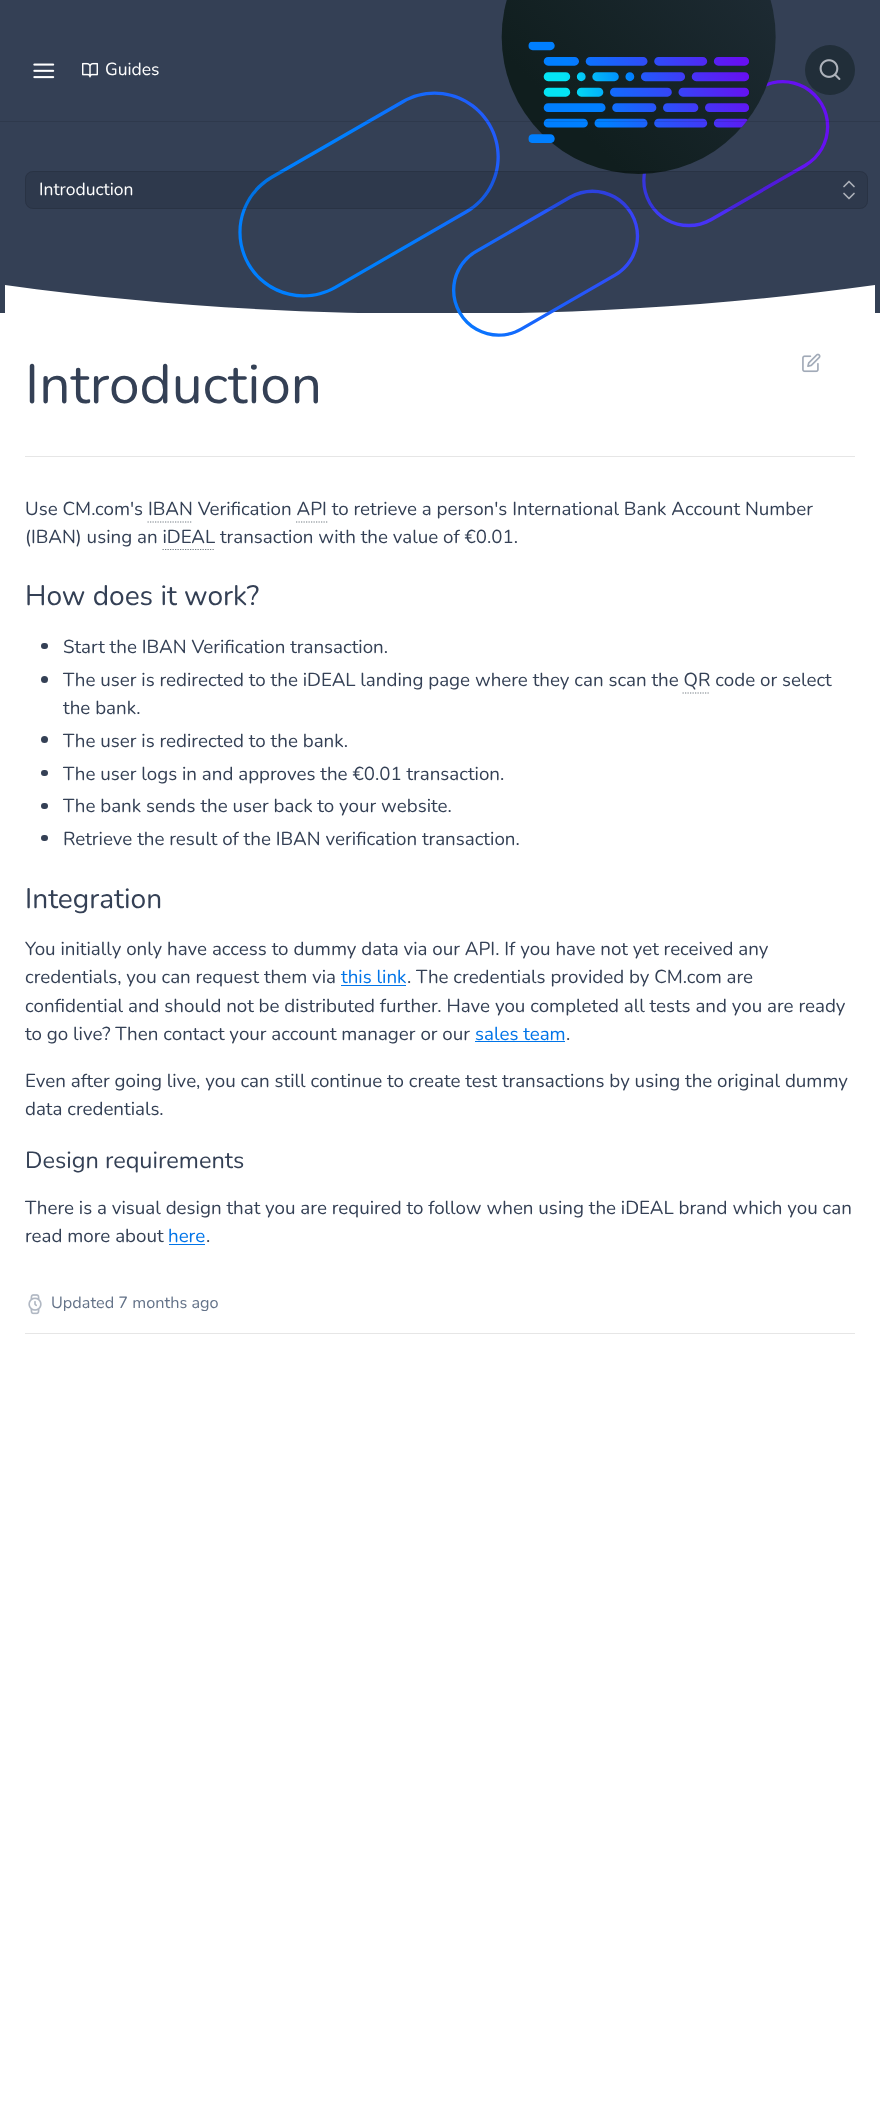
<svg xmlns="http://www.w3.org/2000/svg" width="880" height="2117">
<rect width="100%" height="100%" fill="#fff"/>
<rect width="880" height="313" fill="#344055"/>
<path d="M440 314c-145 0-291-9-435-29v29h870v-29c-144 20-290 29-435 29z" fill="#fff"/>
<image x="238" y="0" width="592" height="337" href="media/4.png"/>
<rect y="121" width="880" height="1" fill="#0000001a"/>
<image x="33" y="63" width="22" height="16" href="media/1.png"/>
<image x="82" y="62" width="16" height="16" href="media/2.png"/>
<text x="105" y="75" style="font-family:Nunito;font-size:17.5px;font-weight:200;fill:#fff">Guides</text>
<circle cx="830" cy="70" r="25" fill="#212e39"/>
<image x="819" y="59" width="22" height="21" href="media/3.png"/>
<rect x="25" y="171" width="843" height="38" rx="8" fill="#0000001a"/>
<rect x="25.5" y="171.5" width="842" height="37" rx="7.5" fill="none" stroke="#0000001a"/>
<text x="39" y="195" style="font-family:Nunito;font-size:17.5px;font-weight:200;fill:#fff">Introduction</text>
<path d="M844 193.5l5 5l5-5m0-7l-5-5l-5 5" fill="none" stroke="#acb0b8" stroke-width="1.7" stroke-linecap="round" stroke-linejoin="round"/>
<rect x="25" y="456" width="830" height="1" fill="#e6e6e6"/>
<text x="25" y="403" style="font-family:Nunito;font-size:55px;font-weight:200;fill:#344055">Introduction</text>
<image x="802" y="353" width="19" height="20" href="media/5.png"/>
<text x="25" y="515" style="font-family:Nunito;font-size:18.75px;font-weight:200;fill:#344055">Use CM.com's IBAN Verification API to retrieve a person's International Bank Account Number</text>
<path d="M147.5 522h45" fill="none" stroke="#737c83" stroke-width="1.2" stroke-dasharray="1.25 1.25"/>
<path d="M296 522h31.5" fill="none" stroke="#737c83" stroke-width="1.2" stroke-dasharray="1.25 1.25"/>
<text x="25" y="543" style="font-family:Nunito;font-size:18.75px;font-weight:200;fill:#344055">(IBAN) using an iDEAL transaction with the value of €0.01.</text>
<path d="M162.5 549.5h52.5" fill="none" stroke="#737c83" stroke-width="1.2" stroke-dasharray="1.25 1.25"/>
<text x="25" y="605" style="font-family:Nunito;font-size:28.1px;font-weight:200;fill:#344055">How does it work?</text>
<rect x="41" y="643" width="7" height="6" rx="3" fill="#344055"/>
<text x="63" y="653" style="font-family:Nunito;font-size:18.75px;font-weight:200;fill:#344055">Start the IBAN Verification transaction.</text>
<circle cx="44.5" cy="679.5" r="3.5" fill="#344055"/>
<text x="63" y="686" style="font-family:Nunito;font-size:18.75px;font-weight:200;fill:#344055">The user is redirected to the iDEAL landing page where they can scan the QR code or select</text>
<path d="M682.5 693h27.5" fill="none" stroke="#737c83" stroke-width="1.2" stroke-dasharray="1.25 1.25"/>
<text x="63" y="714" style="font-family:Nunito;font-size:18.75px;font-weight:200;fill:#344055">the bank.</text>
<circle cx="44.5" cy="739.5" r="3.5" fill="#344055"/>
<text x="63" y="747" style="font-family:Nunito;font-size:18.75px;font-weight:200;fill:#344055">The user is redirected to the bank.</text>
<rect x="41" y="770" width="7" height="6" rx="3" fill="#344055"/>
<text x="63" y="780" style="font-family:Nunito;font-size:18.75px;font-weight:200;fill:#344055">The user logs in and approves the €0.01 transaction.</text>
<rect x="41" y="803" width="7" height="6" rx="3" fill="#344055"/>
<text x="63" y="812" style="font-family:Nunito;font-size:18.75px;font-weight:200;fill:#344055">The bank sends the user back to your website.</text>
<rect x="41" y="835" width="7" height="6" rx="3" fill="#344055"/>
<text x="63" y="845" style="font-family:Nunito;font-size:18.75px;font-weight:200;fill:#344055">Retrieve the result of the IBAN verification transaction.</text>
<text x="25" y="908" style="font-family:Nunito;font-size:28.1px;font-weight:200;fill:#344055">Integration</text>
<text x="25" y="955" style="font-family:Nunito;font-size:18.75px;font-weight:200;fill:#344055">You initially only have access to dummy data via our API. If you have not yet received any</text>
<text x="25" y="983" style="font-family:Nunito;font-size:18.75px;font-weight:200;fill:#344055">credentials, you can request them via</text>
<text x="341" y="983" style="font-family:Nunito;font-size:18.75px;font-weight:200;fill:#0074e8">this link</text>
<rect x="341" y="985" width="65" height="1" fill="#0074e8"/>
<text x="407" y="983" style="font-family:Nunito;font-size:18.75px;font-weight:200;fill:#344055">. The credentials provided by CM.com are</text>
<text x="25" y="1012" style="font-family:Nunito;font-size:18.75px;font-weight:200;fill:#344055">confidential and should not be distributed further. Have you completed all tests and you are ready</text>
<text x="25" y="1040" style="font-family:Nunito;font-size:18.75px;font-weight:200;fill:#344055">to go live? Then contact your account manager or our</text>
<text x="475" y="1040" style="font-family:Nunito;font-size:18.75px;font-weight:200;fill:#0074e8">sales team</text>
<rect x="475" y="1041" width="90" height="1" fill="#0074e8"/>
<text x="566" y="1040" style="font-family:Nunito;font-size:18.75px;font-weight:200;fill:#344055">.</text>
<text x="25" y="1087" style="font-family:Nunito;font-size:18.75px;font-weight:200;fill:#344055">Even after going live, you can still continue to create test transactions by using the original dummy</text>
<text x="25" y="1115" style="font-family:Nunito;font-size:18.75px;font-weight:200;fill:#344055">data credentials.</text>
<text x="25" y="1168" style="font-family:Nunito;font-size:23.5px;font-weight:200;fill:#344055">Design requirements</text>
<text x="25" y="1214" style="font-family:Nunito;font-size:18.75px;font-weight:200;fill:#344055">There is a visual design that you are required to follow when using the iDEAL brand which you can</text>
<text x="25" y="1242" style="font-family:Nunito;font-size:18.75px;font-weight:200;fill:#344055">read more about</text>
<text x="168" y="1242" style="font-family:Nunito;font-size:18.75px;font-weight:200;fill:#0074e8">here</text>
<rect x="169" y="1244" width="36" height="1" fill="#0074e8"/>
<text x="206" y="1242" style="font-family:Nunito;font-size:18.75px;font-weight:200;fill:#344055">.</text>
<image x="28" y="1294" width="14" height="21" href="media/6.png"/>
<text x="51" y="1308" style="font-family:Nunito;font-size:16.25px;font-weight:200;fill:#637288">Updated 7 months ago</text>
<rect x="25" y="1333" width="830" height="1" fill="#e6e6e6"/>
</svg>
